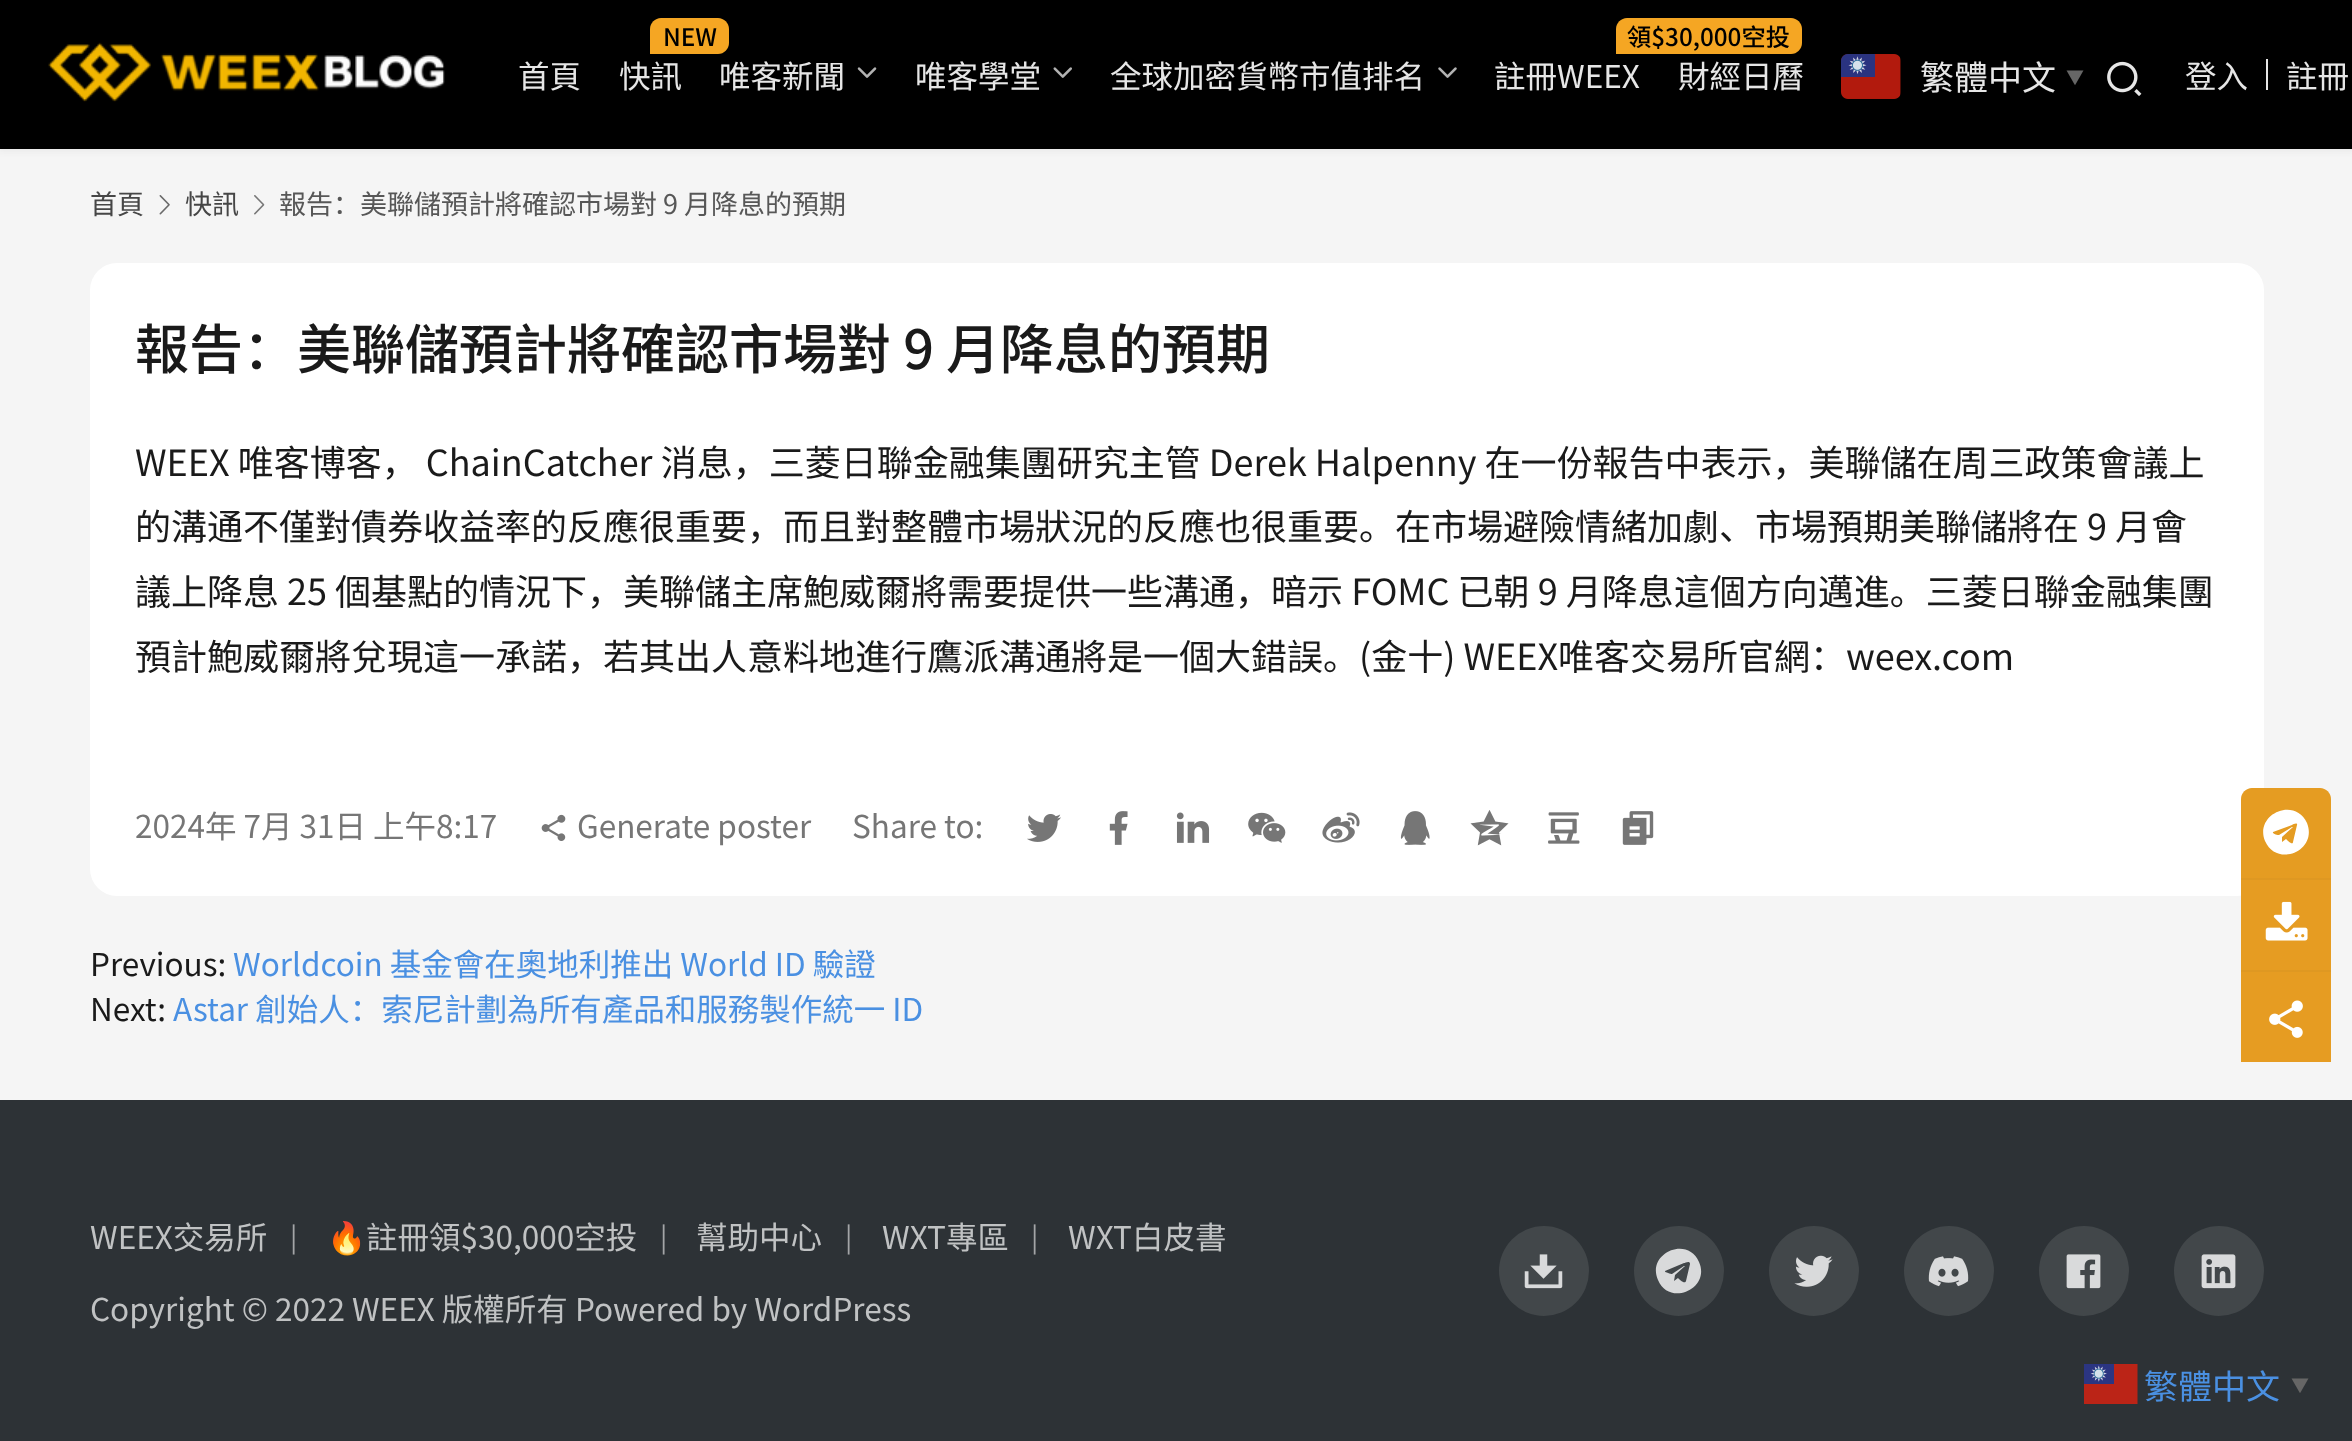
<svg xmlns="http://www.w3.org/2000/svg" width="2352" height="1441">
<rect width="100%" height="100%" fill="#f5f5f5"/>
<rect x="-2" y="-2" width="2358" height="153" fill="#1a1a1a0f" filter="blur(3.5px)"/>
<rect width="2352" height="149" fill="#000"/>
<image x="48" y="42" width="397" height="60" href="media/1.png"/>
<text x="518" y="88" style="font-family:Noto Sans CJK SC;font-size:31.5px;fill:#e6e6e6">首頁</text>
<path d="M661 18h57c6 0 11 5 11 11v14c0 6-5 11-11 11h-68v-25c0-6 5-11 11-11z" fill="#f5a623"/>
<text x="663" y="46" style="font-family:Noto Sans CJK SC;font-size:24.25px;font-weight:500;fill:#000">NEW</text>
<text x="619" y="88" style="font-family:Noto Sans CJK SC;font-size:31.5px;fill:#e6e6e6">快訊</text>
<text x="719" y="88" style="font-family:Noto Sans CJK SC;font-size:31.5px;fill:#e6e6e6">唯客新聞</text>
<image x="857" y="67" width="20" height="11" href="media/2.png"/>
<text x="915" y="88" style="font-family:Noto Sans CJK SC;font-size:31.5px;fill:#e6e6e6">唯客學堂</text>
<image x="1053" y="67" width="19" height="11" href="media/3.png"/>
<text x="1110" y="88" style="font-family:Noto Sans CJK SC;font-size:31.5px;fill:#e6e6e6">全球加密貨幣市值排名</text>
<image x="1438" y="67" width="19" height="11" href="media/4.png"/>
<path d="M1627 18h164c6 0 11 5 11 11v14c0 6-5 11-11 11h-175v-25c0-6 5-11 11-11z" fill="#f5a623"/>
<text x="1627" y="46" style="font-family:Noto Sans CJK SC;font-size:24.25px;font-weight:500;fill:#000">領$30,000空投</text>
<text x="1494" y="88" style="font-family:Noto Sans CJK SC;font-size:31.5px;fill:#e6e6e6">註冊WEEX</text>
<text x="1678" y="88" style="font-family:Noto Sans CJK SC;font-size:31.5px;fill:#e6e6e6">財經日曆</text>
<image x="1841" y="54" width="60" height="45" href="media/5.png"/>
<text x="1920" y="90" style="font-family:Noto Sans CJK SC;font-size:34px;fill:#e6e6e6">繁體中文</text>
<text x="2066" y="84" style="font-family:Noto Sans CJK SC;font-size:18px;font-weight:bold;fill:#666">▼</text>
<image x="2107" y="61" width="35" height="35" href="media/6.png"/>
<text x="2185" y="88" style="font-family:Noto Sans CJK SC;font-size:31.5px;fill:#e6e6e6">登入</text>
<rect x="2266" y="59" width="2" height="31" fill="#e6e6e6"/>
<text x="2286" y="88" style="font-family:Noto Sans CJK SC;font-size:31.5px;fill:#e6e6e6">註冊</text>
<text x="90" y="214" style="font-family:Noto Sans CJK SC;font-size:27px;fill:#464646">首頁</text>
<image x="159" y="195" width="11" height="20" href="media/7.png"/>
<text x="185" y="214" style="font-family:Noto Sans CJK SC;font-size:27px;fill:#464646">快訊</text>
<image x="254" y="195" width="11" height="20" href="media/8.png"/>
<text x="279" y="214" style="font-family:Noto Sans CJK SC;font-size:27px;fill:#575757">報告：美聯儲預計將確認市場對 9 月降息的預期</text>
<rect x="90" y="263" width="2174" height="633" rx="27" fill="#fff"/>
<text x="135" y="369" style="font-family:Noto Sans CJK SC;font-size:54px;font-weight:500;fill:#1a1a1a">報告：美聯儲預計將確認市場對 9 月降息的預期</text>
<text x="135" y="476" style="font-family:Noto Sans CJK SC;font-size:36px;fill:#1a1a1a">WEEX 唯客博客， ChainCatcher 消息，三菱日聯金融集團研究主管 Derek Halpenny 在一份報告中表示，美聯儲在周三政策會議上</text>
<text x="135" y="540" style="font-family:Noto Sans CJK SC;font-size:36px;fill:#1a1a1a">的溝通不僅對債券收益率的反應很重要，而且對整體市場狀況的反應也很重要。在市場避險情緒加劇、市場預期美聯儲將在 9 月會</text>
<text x="135" y="605" style="font-family:Noto Sans CJK SC;font-size:36px;fill:#1a1a1a">議上降息 25 個基點的情況下，美聯儲主席鮑威爾將需要提供一些溝通，暗示 FOMC 已朝 9 月降息這個方向邁進。三菱日聯金融集團</text>
<text x="135" y="670" style="font-family:Noto Sans CJK SC;font-size:36px;fill:#1a1a1a">預計鮑威爾將兌現這一承諾，若其出人意料地進行鷹派溝通將是一個大錯誤。(金十) WEEX唯客交易所官網：weex.com</text>
<text x="135" y="838" style="font-family:Noto Sans CJK SC;font-size:31.5px;fill:#767676">2024年 7月 31日 上午8:17</text>
<image x="541" y="814" width="25" height="27" href="media/9.png"/>
<text x="577" y="838" style="font-family:Noto Sans CJK SC;font-size:31.5px;fill:#767676">Generate poster</text>
<text x="852" y="838" style="font-family:Noto Sans CJK SC;font-size:31.5px;fill:#767676">Share to:</text>
<image x="1027" y="814" width="34" height="28" href="media/10.png"/>
<image x="1109" y="811" width="19" height="34" href="media/11.png"/>
<image x="1176" y="812" width="34" height="31" href="media/12.png"/>
<image x="1248" y="812" width="38" height="31" href="media/13.png"/>
<image x="1322" y="812" width="38" height="31" href="media/14.png"/>
<image x="1400" y="811" width="30" height="34" href="media/15.png"/>
<image x="1470" y="810" width="39" height="36" href="media/16.png"/>
<image x="1548" y="812" width="32" height="32" href="media/17.png"/>
<image x="1622" y="811" width="32" height="34" href="media/18.png"/>
<text x="90" y="976" style="font-family:Noto Sans CJK SC;font-size:31.5px;fill:#1a1a1a">Previous:</text>
<text x="233" y="976" style="font-family:Noto Sans CJK SC;font-size:31.5px;fill:#4a90e2">Worldcoin 基金會在奧地利推出 World ID 驗證</text>
<text x="90" y="1021" style="font-family:Noto Sans CJK SC;font-size:31.5px;fill:#1a1a1a">Next:</text>
<text x="173" y="1021" style="font-family:Noto Sans CJK SC;font-size:31.5px;fill:#4a90e2">Astar 創始人：索尼計劃為所有產品和服務製作統一 ID</text>
<path d="M2252 788h68c6 0 11 5 11 11v79h-90v-79c0-6 5-11 11-11z" fill="#f5a623"/>
<path d="M2252 788h68c6 0 11 5 11 11v79h-90v-79c0-6 5-11 11-11z" fill="#1a1a1a12"/>
<path d="M2293 842l4-17c1-3-4-1-5 0l-19 7c-1 2 5 3 6 3l13-8c0 0 1 0 1 0l-11 10v5l4-3c1 1 7 7 7 3zm14-19c11 28-30 45-42 18c-11-27 30-45 42-18z" fill="#fff"/>
<rect x="2241" y="878" width="90" height="2" fill="#df9822"/>
<rect x="2241" y="880" width="90" height="90" fill="#e69c22"/>
<image x="2265" y="901" width="43" height="40" href="media/19.png"/>
<rect x="2241" y="970" width="90" height="2" fill="#df9822"/>
<rect x="2241" y="972" width="90" height="90" fill="#e69c22"/>
<image x="2269" y="1000" width="34" height="38" href="media/20.png"/>
<rect y="1100" width="2352" height="341" fill="#2d3236"/>
<text x="90" y="1249" style="font-family:Noto Sans CJK SC;font-size:31.5px;fill:#c0c2c3">WEEX交易所</text>
<text x="290" y="1247" style="font-family:Noto Sans CJK SC;font-size:27px;fill:#a3a5a7">|</text>
<text x="327" y="1249" style="font-family:Noto Color Emoji;font-size:31.5px;fill:#c0c2c3">🔥</text>
<text x="366" y="1249" style="font-family:Noto Sans CJK SC;font-size:31.5px;fill:#c0c2c3">註冊領$30,000空投</text>
<text x="660" y="1247" style="font-family:Noto Sans CJK SC;font-size:27px;fill:#a3a5a7">|</text>
<text x="696" y="1249" style="font-family:Noto Sans CJK SC;font-size:31.5px;fill:#c0c2c3">幫助中心</text>
<text x="845" y="1247" style="font-family:Noto Sans CJK SC;font-size:27px;fill:#a3a5a7">|</text>
<text x="882" y="1249" style="font-family:Noto Sans CJK SC;font-size:31.5px;fill:#c0c2c3">WXT專區</text>
<text x="1031" y="1247" style="font-family:Noto Sans CJK SC;font-size:27px;fill:#a3a5a7">|</text>
<text x="1068" y="1249" style="font-family:Noto Sans CJK SC;font-size:31.5px;fill:#c0c2c3">WXT白皮書</text>
<text x="90" y="1321" style="font-family:Noto Sans CJK SC;font-size:31.5px;fill:#c0c2c3">Copyright © 2022 WEEX 版權所有 Powered by WordPress</text>
<circle cx="1544" cy="1271" r="45" fill="#42474a"/>
<image x="1524" y="1254" width="39" height="35" href="media/21.png"/>
<circle cx="1679" cy="1271" r="45" fill="#42474a"/>
<path d="M1686 1281l4-17c0-4-5-1-6-1l-19 8c-1 1 6 3 7 3l12-8c1 0 2 0 1 0l-10 9l-1 6l4-3c1 1 7 7 8 3zm13-19c12 27-30 45-41 18c-12-27 30-45 41-18z" fill="#d9dadb"/>
<circle cx="1814" cy="1271" r="45" fill="#42474a"/>
<image x="1794" y="1255" width="39" height="32" href="media/22.png"/>
<circle cx="1949" cy="1271" r="45" fill="#42474a"/>
<image x="1928" y="1256" width="41" height="31" href="media/23.png"/>
<circle cx="2084" cy="1271" r="45" fill="#42474a"/>
<image x="2066" y="1254" width="35" height="35" href="media/24.png"/>
<circle cx="2219" cy="1271" r="45" fill="#42474a"/>
<image x="2201" y="1254" width="35" height="35" href="media/25.png"/>
<image x="2084" y="1364" width="54" height="40" href="media/26.png"/>
<text x="2144" y="1399" style="font-family:Noto Sans CJK SC;font-size:34px;fill:#4a90e2">繁體中文</text>
<text x="2291" y="1392" style="font-family:Noto Sans CJK SC;font-size:18px;font-weight:bold;fill:#666">▼</text>
</svg>
